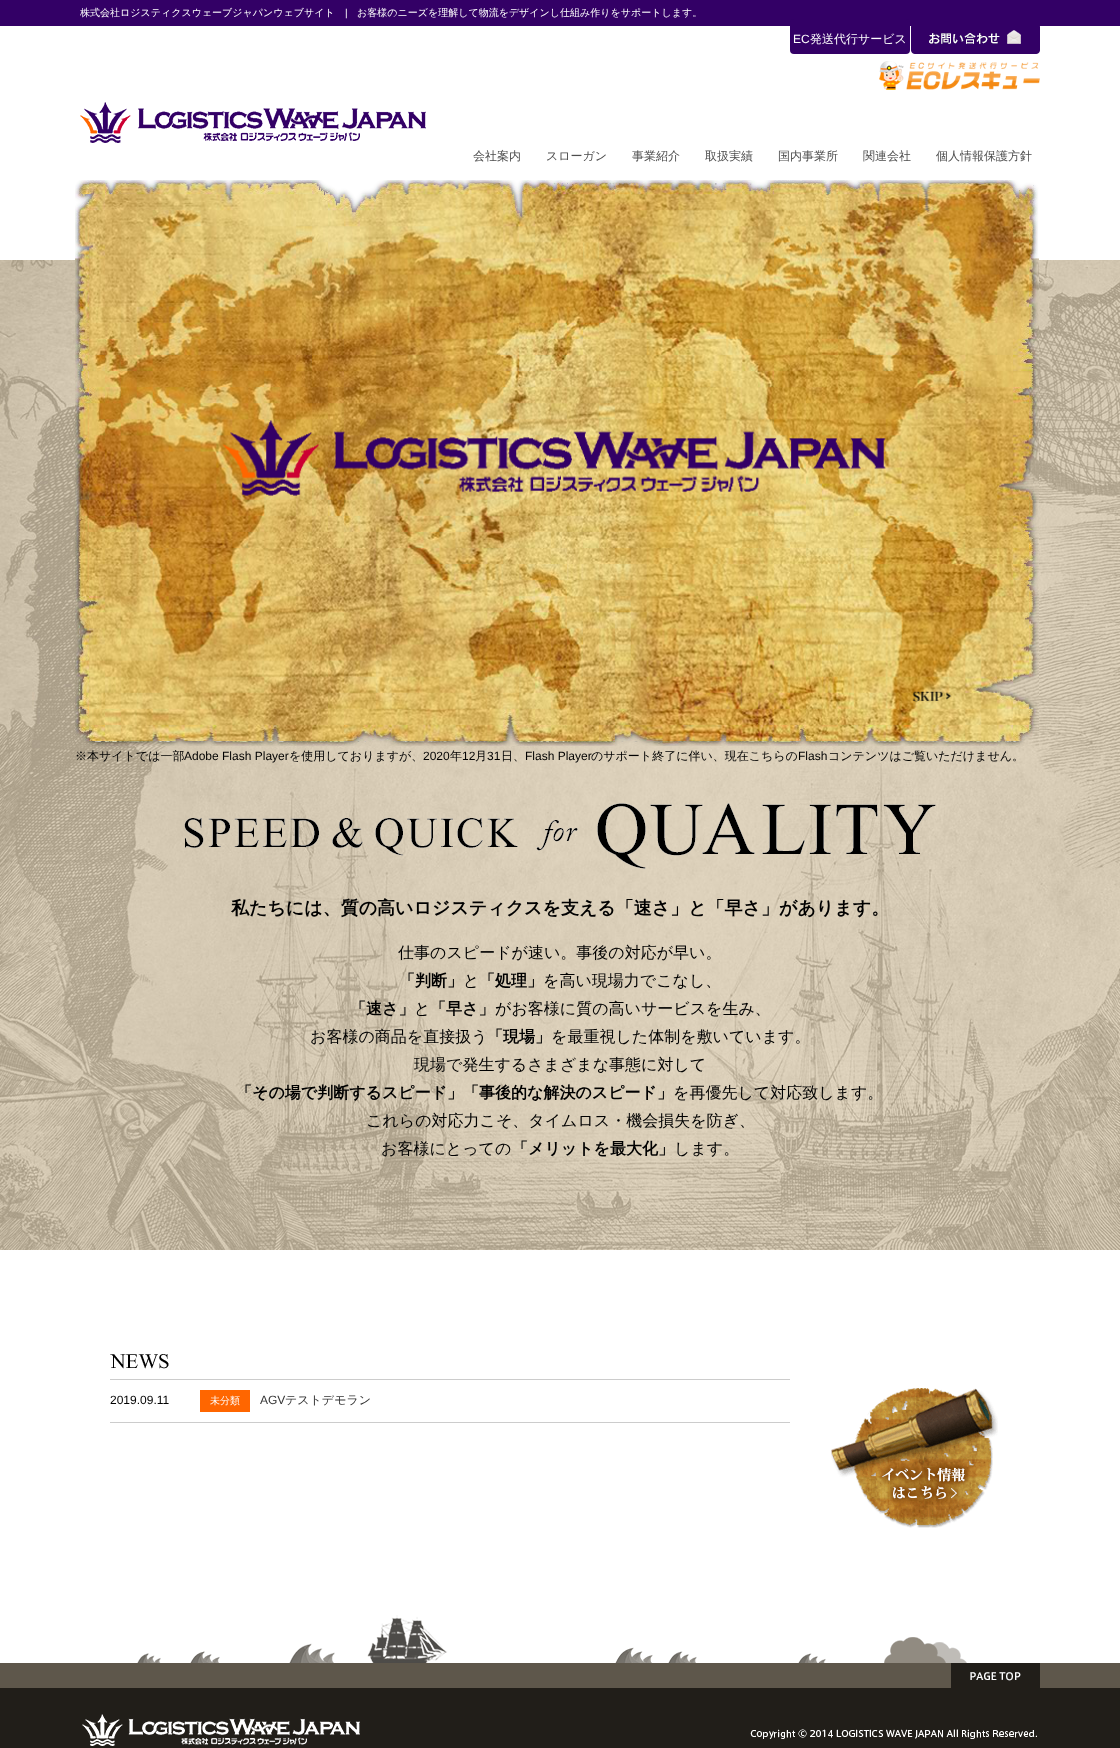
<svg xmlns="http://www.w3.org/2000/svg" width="1120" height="1748">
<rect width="100%" height="100%" fill="#fff"/>
<rect width="1120" height="26" fill="#306"/>
<text x="80" y="16" style="font-family:WenQuanYi Zen Hei;font-size:10px;font-weight:500;fill:#fff">株式会社ロジスティクスウェーブジャパンウェブサイト</text>
<text x="345" y="16" style="font-family:Liberation Sans;font-size:10px;fill:#fff">|</text>
<text x="357" y="16" style="font-family:WenQuanYi Zen Hei;font-size:10px;font-weight:500;fill:#fff">お客様のニーズを理解して物流をデザインし仕組み作りをサポートします。</text>
<rect x="790" y="19" width="120" height="35" rx="4" fill="#306"/>
<text x="793" y="43" style="font-family:Liberation Sans;font-size:12px;fill:#fff">EC</text>
<text x="810" y="43" style="font-family:WenQuanYi Zen Hei;font-size:12px;font-weight:500;fill:#fff">発送代行サービス</text>
<image x="911" y="26" width="129" height="28" href="media/1.png"/>
<image x="879" y="61" width="161" height="29" href="media/2.png"/>
<image x="80" y="102" width="346" height="41" href="media/3.png"/>
<text x="473" y="160" style="font-family:WenQuanYi Zen Hei;font-size:12px;font-weight:500;fill:#4d4d4d">会社案内</text>
<text x="546" y="160" style="font-family:WenQuanYi Zen Hei;font-size:12px;font-weight:500;fill:#4d4d4d">スローガン</text>
<text x="632" y="160" style="font-family:WenQuanYi Zen Hei;font-size:12px;font-weight:500;fill:#4d4d4d">事業紹介</text>
<text x="705" y="160" style="font-family:WenQuanYi Zen Hei;font-size:12px;font-weight:500;fill:#4d4d4d">取扱実績</text>
<text x="778" y="160" style="font-family:WenQuanYi Zen Hei;font-size:12px;font-weight:500;fill:#4d4d4d">国内事業所</text>
<text x="863" y="160" style="font-family:WenQuanYi Zen Hei;font-size:12px;font-weight:500;fill:#4d4d4d">関連会社</text>
<text x="936" y="160" style="font-family:WenQuanYi Zen Hei;font-size:12px;font-weight:500;fill:#4d4d4d">個人情報保護方針</text>
<image x="0" y="260" width="1120" height="990" href="media/4.png"/>
<image x="75" y="180" width="964" height="566" href="media/5.png"/>
<text x="75" y="760" style="font-family:WenQuanYi Zen Hei;font-size:12px;font-weight:500;fill:#000">※本サイトでは一部</text>
<text x="184" y="760" style="font-family:Liberation Sans;font-size:12px;fill:#000">Adobe Flash Player</text>
<text x="289" y="760" style="font-family:WenQuanYi Zen Hei;font-size:12px;font-weight:500;fill:#000">を使用しておりますが、</text>
<text x="423" y="760" style="font-family:Liberation Sans;font-size:12px;fill:#000">2020</text>
<text x="450" y="760" style="font-family:WenQuanYi Zen Hei;font-size:12px;font-weight:500;fill:#000">年</text>
<text x="462" y="760" style="font-family:Liberation Sans;font-size:12px;fill:#000">12</text>
<text x="475" y="760" style="font-family:WenQuanYi Zen Hei;font-size:12px;font-weight:500;fill:#000">月</text>
<text x="487" y="760" style="font-family:Liberation Sans;font-size:12px;fill:#000">31</text>
<text x="501" y="760" style="font-family:WenQuanYi Zen Hei;font-size:12px;font-weight:500;fill:#000">日、</text>
<text x="525" y="760" style="font-family:Liberation Sans;font-size:12px;fill:#000">Flash Player</text>
<text x="591" y="760" style="font-family:WenQuanYi Zen Hei;font-size:12px;font-weight:500;fill:#000">のサポート終了に伴い、現在こちらの</text>
<text x="798" y="760" style="font-family:Liberation Sans;font-size:12px;fill:#000">Flash</text>
<text x="828" y="760" style="font-family:WenQuanYi Zen Hei;font-size:12px;font-weight:500;fill:#000">コンテンツはご覧いただけません。</text>
<image x="184" y="803" width="752" height="66" href="media/6.png"/>
<text x="231" y="914" style="font-family:WenQuanYi Zen Hei;font-size:18px;font-weight:bold;fill:#000">私たちには、質の高いロジスティクスを支える「速さ」と「早さ」があります。</text>
<text x="398" y="958" style="font-family:WenQuanYi Zen Hei;font-size:16px;font-weight:500;fill:#000">仕事のスピードが速い。事後の対応が早い。</text>
<text x="399" y="986" style="font-family:WenQuanYi Zen Hei;font-size:16px;font-weight:bold;fill:#000">「判断」</text>
<text x="463" y="986" style="font-family:WenQuanYi Zen Hei;font-size:16px;font-weight:500;fill:#000">と</text>
<text x="479" y="986" style="font-family:WenQuanYi Zen Hei;font-size:16px;font-weight:bold;fill:#000">「処理」</text>
<text x="543" y="986" style="font-family:WenQuanYi Zen Hei;font-size:16px;font-weight:500;fill:#000">を高い現場力でこなし、</text>
<text x="350" y="1014" style="font-family:WenQuanYi Zen Hei;font-size:16px;font-weight:bold;fill:#000">「速さ」</text>
<text x="414" y="1014" style="font-family:WenQuanYi Zen Hei;font-size:16px;font-weight:500;fill:#000">と</text>
<text x="430" y="1014" style="font-family:WenQuanYi Zen Hei;font-size:16px;font-weight:bold;fill:#000">「早さ」</text>
<text x="495" y="1014" style="font-family:WenQuanYi Zen Hei;font-size:16px;font-weight:500;fill:#000">がお客様に質の高いサービスを生み、</text>
<text x="310" y="1042" style="font-family:WenQuanYi Zen Hei;font-size:16px;font-weight:500;fill:#000">お客様の商品を直接扱う</text>
<text x="487" y="1042" style="font-family:WenQuanYi Zen Hei;font-size:16px;font-weight:bold;fill:#000">「現場」</text>
<text x="551" y="1042" style="font-family:WenQuanYi Zen Hei;font-size:16px;font-weight:500;fill:#000">を最重視した体制を敷いています。</text>
<text x="414" y="1070" style="font-family:WenQuanYi Zen Hei;font-size:16px;font-weight:500;fill:#000">現場で発生するさまざまな事態に対して</text>
<text x="236" y="1098" style="font-family:WenQuanYi Zen Hei;font-size:16px;font-weight:bold;fill:#000">「その場で判断するスピード」「事後的な解決のスピード」</text>
<text x="673" y="1098" style="font-family:WenQuanYi Zen Hei;font-size:16px;font-weight:500;fill:#000">を再優先して対応致します。</text>
<text x="366" y="1126" style="font-family:WenQuanYi Zen Hei;font-size:16px;font-weight:500;fill:#000">これらの対応力こそ、タイムロス・機会損失を防ぎ、</text>
<text x="381" y="1154" style="font-family:WenQuanYi Zen Hei;font-size:16px;font-weight:500;fill:#000">お客様にとっての</text>
<text x="512" y="1154" style="font-family:WenQuanYi Zen Hei;font-size:16px;font-weight:bold;fill:#000">「メリットを最大化」</text>
<text x="674" y="1154" style="font-family:WenQuanYi Zen Hei;font-size:16px;font-weight:500;fill:#000">します。</text>
<image x="110" y="1354" width="59" height="15" href="media/7.png"/>
<rect x="110" y="1422" width="680" height="1" fill="#ccc"/>
<rect x="110" y="1379" width="680" height="1" fill="#ccc"/>
<text x="110" y="1404" style="font-family:Liberation Sans;font-size:12px;fill:#000">2019.09.11</text>
<rect x="200" y="1390" width="50" height="22" fill="#f60"/>
<text x="210" y="1404" style="font-family:WenQuanYi Zen Hei;font-size:10px;font-weight:500;fill:#fff">未分類</text>
<text x="260" y="1404" style="font-family:Liberation Sans;font-size:12px;fill:#333">AGV</text>
<text x="285" y="1404" style="font-family:WenQuanYi Zen Hei;font-size:12px;font-weight:500;fill:#333">テストデモラン</text>
<image x="831" y="1388" width="167" height="140" href="media/8.png"/>
<image x="0" y="1662" width="1120" height="86" href="media/9.png"/>
<image x="137" y="1615" width="830" height="48" href="media/10.png"/>
<image x="951" y="1663" width="89" height="25" href="media/11.png"/>
<image x="82" y="1714" width="278" height="32" href="media/12.png"/>
<image x="750" y="1729" width="287" height="10" href="media/13.png"/>
</svg>
